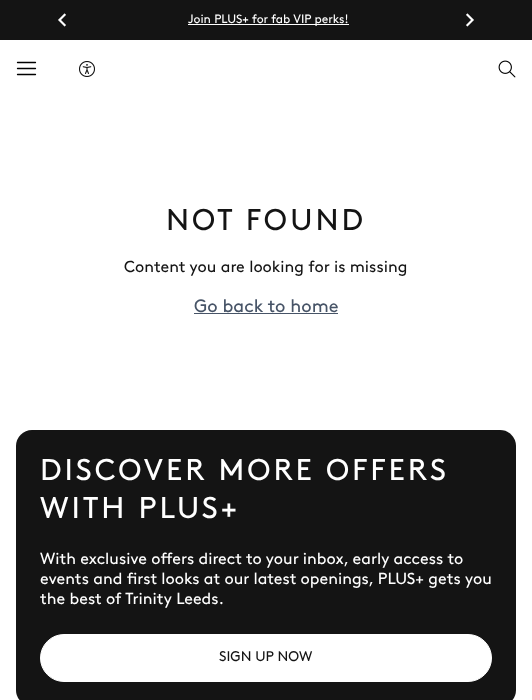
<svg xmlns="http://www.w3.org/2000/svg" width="532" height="700">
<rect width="100%" height="100%" fill="#fff"/>
<rect width="532" height="40" fill="#141414"/>
<image x="58" y="13" width="8" height="14" href="media/1.png"/>
<image x="466" y="13" width="8" height="14" href="media/2.png"/>
<rect x="188" y="24" width="161" height="1" fill="#fff"/>
<text x="188" y="23" style="font-family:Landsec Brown;font-size:12px;fill:#fff">Join PLUS+ for fab VIP perks!</text>
<path d="M17.5 68.5h18m-18-6h18m-18 12h18" fill="none" stroke="#000" stroke-width="1.3" stroke-linecap="round" stroke-linejoin="round"/>
<image x="79" y="61" width="16" height="16" href="media/3.png"/>
<image x="498" y="60" width="18" height="18" href="media/4.png"/>
<text x="166" y="230" style="font-family:Landsec Brown;font-size:30px;letter-spacing:3px;fill:#141414">NOT FOUND</text>
<text x="124" y="272" style="font-family:Landsec Brown;font-size:16px;fill:#141414">Content you are looking for is missing</text>
<text x="194" y="312" style="font-family:Landsec Brown;font-size:18px;fill:#475467">Go back to home</text>
<rect x="194" y="313" width="144" height="1" fill="#475467"/>
<rect x="16" y="430" width="500" height="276" rx="16" fill="#141414"/>
<text x="40" y="480" style="font-family:Landsec Brown;font-size:30px;letter-spacing:3px;fill:#fff">DISCOVER MORE OFFERS</text>
<text x="40" y="518" style="font-family:Landsec Brown;font-size:30px;letter-spacing:3px;fill:#fff">WITH PLUS+</text>
<text x="40" y="564" style="font-family:Landsec Brown;font-size:16px;fill:#fff">With exclusive offers direct to your inbox, early access to</text>
<text x="40" y="584" style="font-family:Landsec Brown;font-size:16px;fill:#fff">events and first looks at our latest openings, PLUS+ gets you</text>
<text x="40" y="604" style="font-family:Landsec Brown;font-size:16px;fill:#fff">the best of Trinity Leeds.</text>
<rect x="40.5" y="634.5" width="451" height="47" rx="23.5" fill="#fff" stroke="#fff"/>
<text x="219" y="661" style="font-family:Landsec Brown;font-size:14px;fill:#141414">SIGN UP NOW</text>
</svg>
